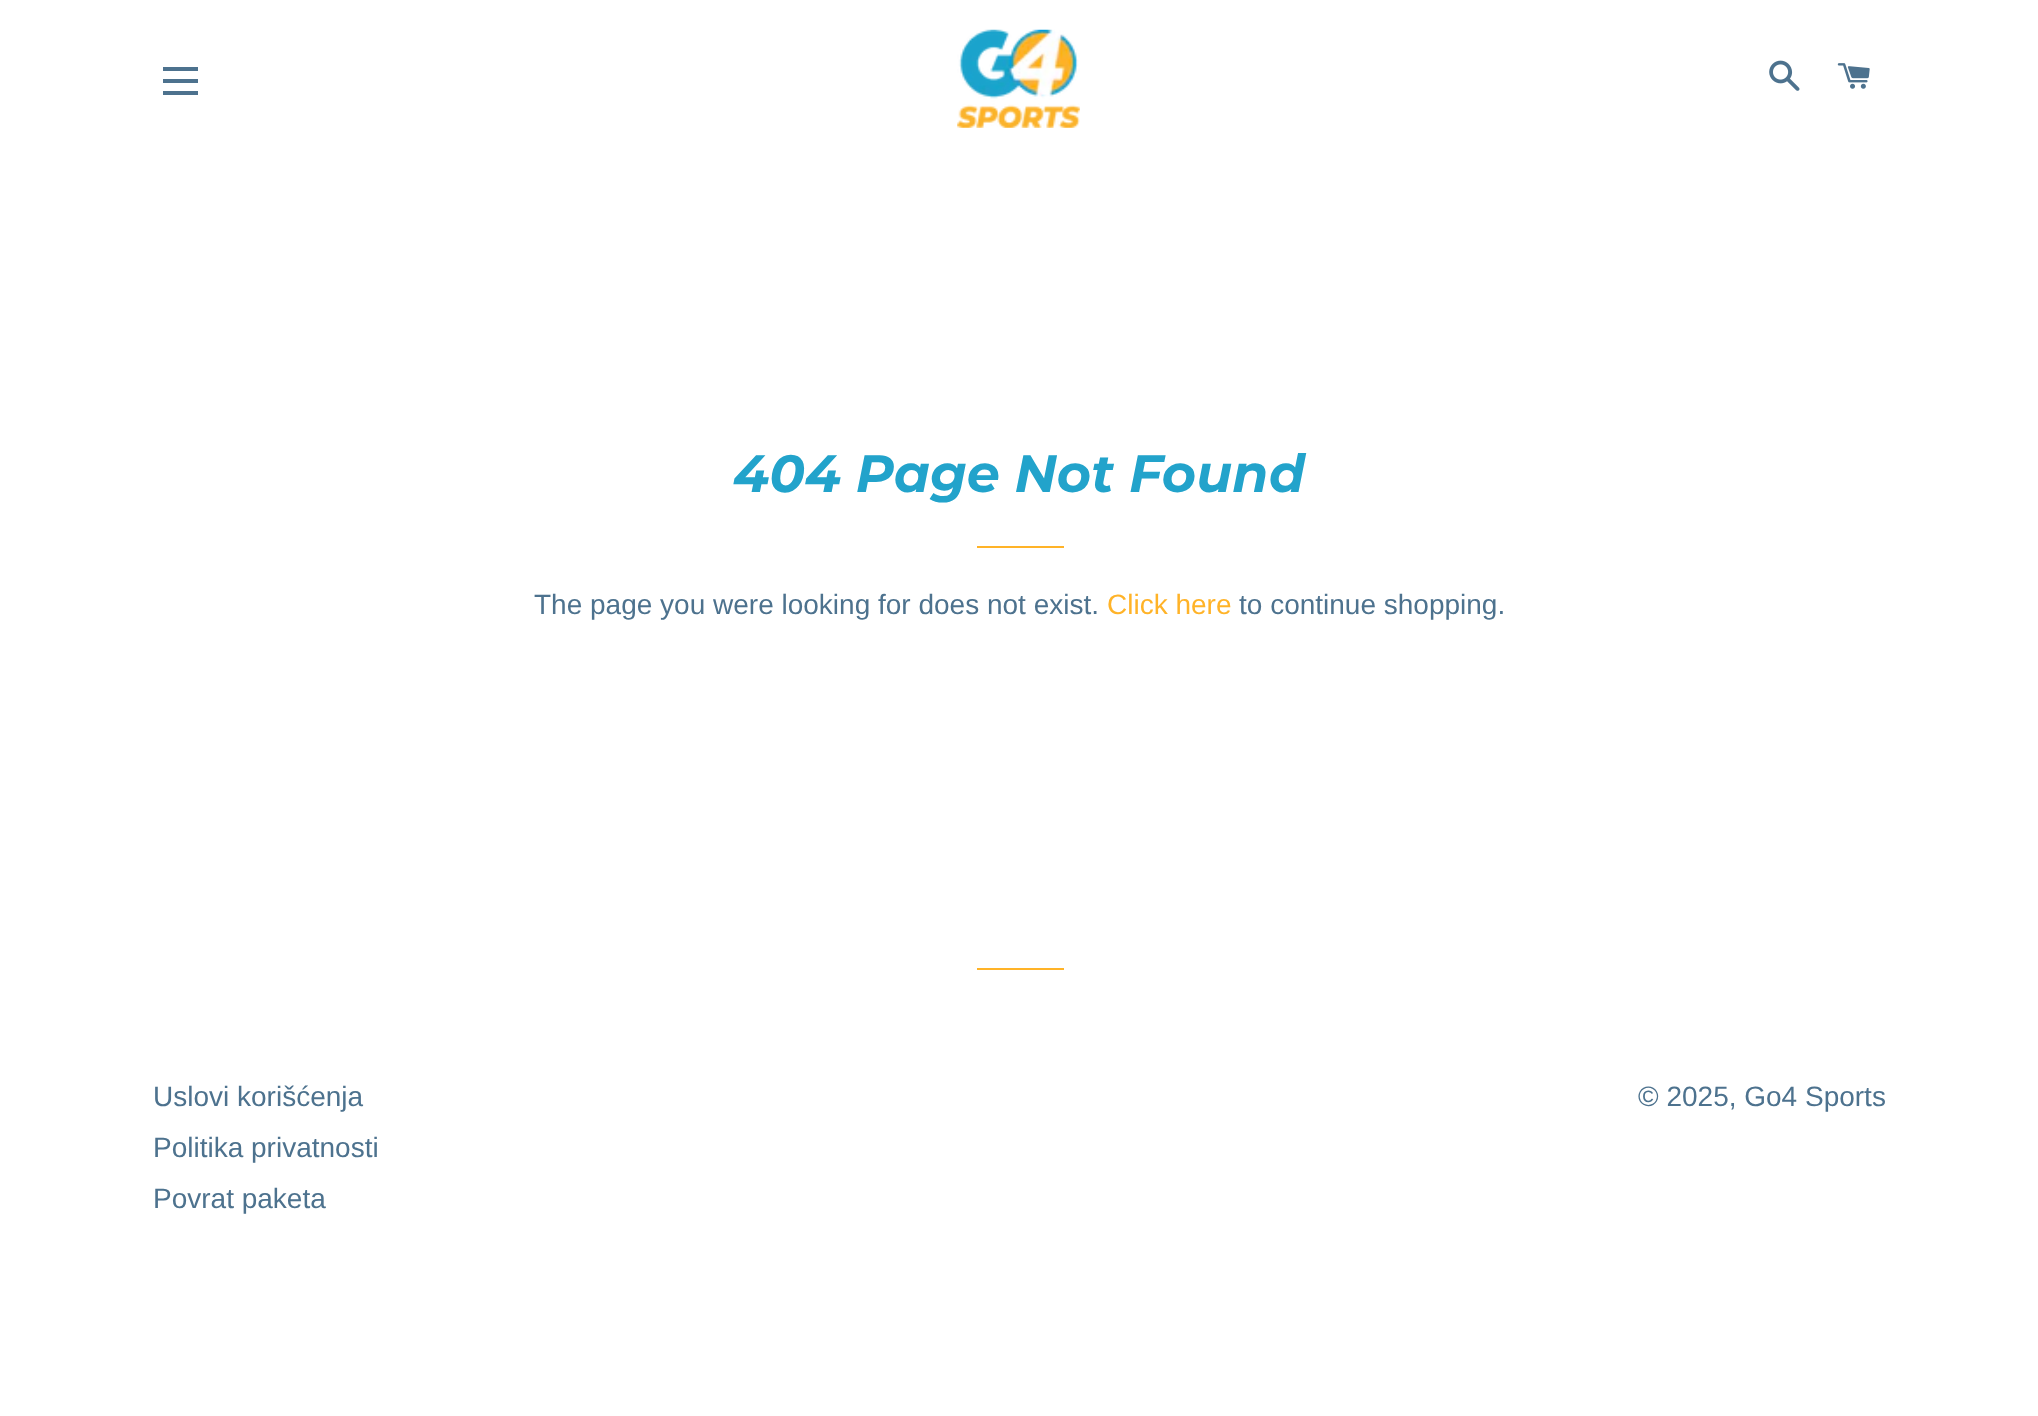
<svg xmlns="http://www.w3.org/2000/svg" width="2038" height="1416">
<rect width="100%" height="100%" fill="#fff"/>
<rect x="163" y="67" width="35" height="4" fill="#4d728e"/>
<rect x="163" y="79" width="35" height="4" fill="#4d728e"/>
<rect x="163" y="91" width="35" height="4" fill="#4d728e"/>
<image x="957" y="29" width="123" height="99" href="media/1.png"/>
<image x="1769" y="60" width="31" height="31" href="media/2.png"/>
<image x="1837" y="63" width="33" height="26" href="media/3.png"/>
<text x="733" y="492" style="font-family:Montserrat;font-size:52.5px;font-weight:bold;font-style:italic;fill:#22a3cb">404 Page Not Found</text>
<rect x="977" y="546" width="87" height="2" fill="#ffb328"/>
<text x="534" y="614" style="font-family:Liberation Sans;font-size:28px;fill:#4d728e">The page you were looking for does not exist.</text>
<text x="1107" y="614" style="font-family:Liberation Sans;font-size:28px;fill:#ffb328">Click here</text>
<text x="1239" y="614" style="font-family:Liberation Sans;font-size:28px;fill:#4d728e">to continue shopping.</text>
<rect x="977" y="968" width="87" height="2" fill="#ffb328"/>
<text x="153" y="1106" style="font-family:Liberation Sans;font-size:28px;fill:#4d728e">Uslovi korišćenja</text>
<text x="153" y="1157" style="font-family:Liberation Sans;font-size:28px;fill:#4d728e">Politika privatnosti</text>
<text x="153" y="1208" style="font-family:Liberation Sans;font-size:28px;fill:#4d728e">Povrat paketa</text>
<text x="1638" y="1106" style="font-family:Liberation Sans;font-size:28px;fill:#4d728e">© 2025, Go4 Sports</text>
</svg>
